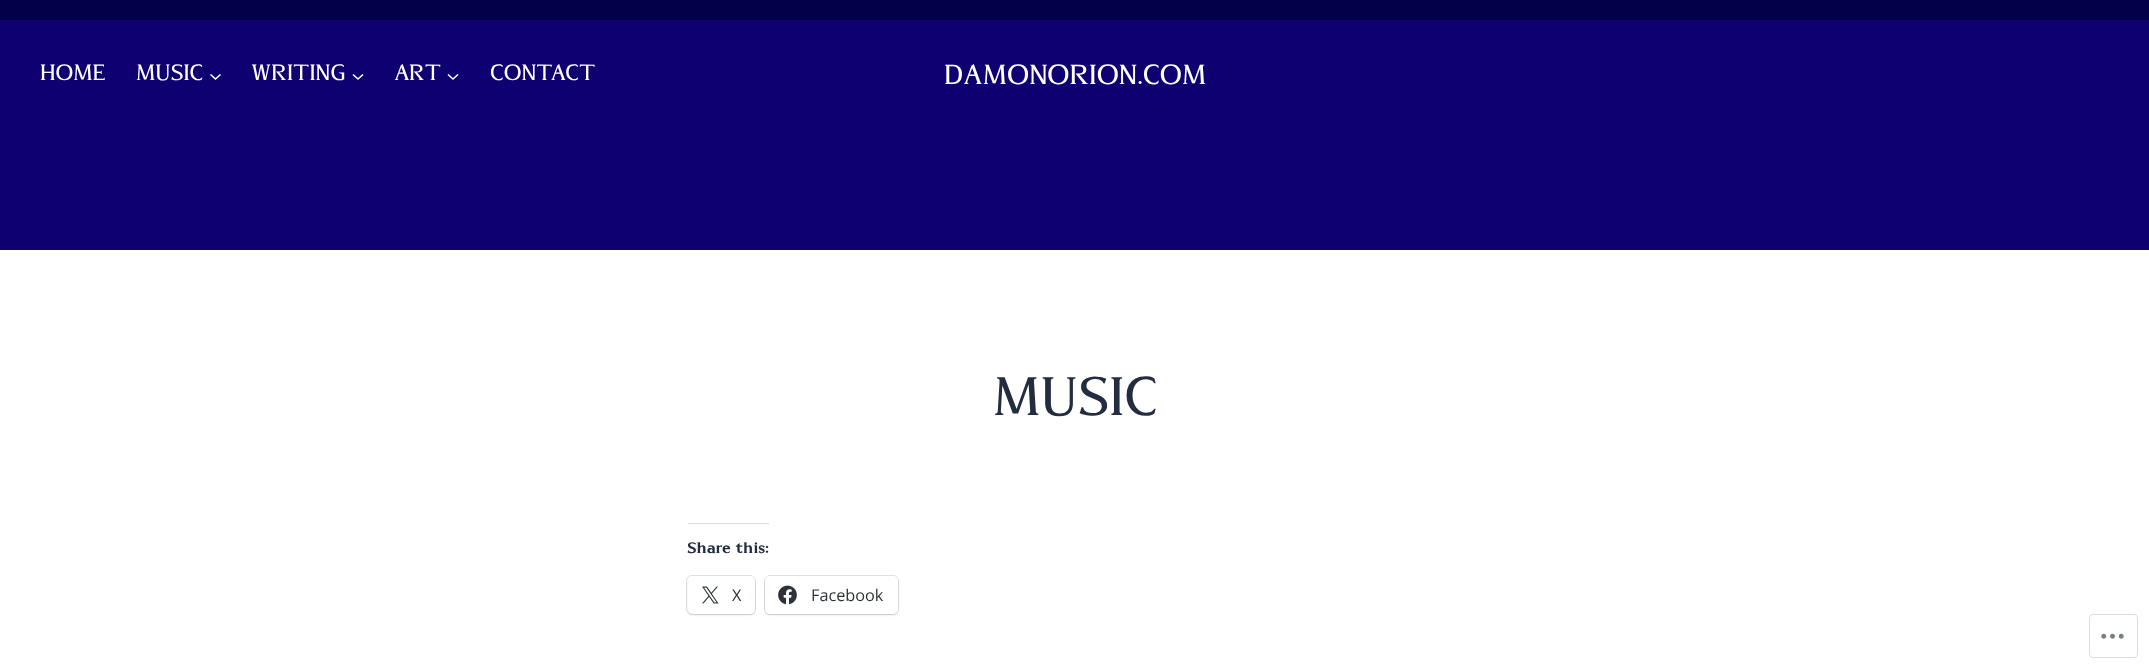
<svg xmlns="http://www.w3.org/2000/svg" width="2149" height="670">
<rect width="100%" height="100%" fill="#fff"/>
<rect width="2149" height="20" fill="#020048"/>
<rect y="20" width="2149" height="230" fill="#0e0070"/>
<text x="40" y="80" style="font-family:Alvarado;font-size:22px;fill:#fff">HOME</text>
<text x="136" y="80" style="font-family:Alvarado;font-size:22px;fill:#fff">MUSIC</text>
<path d="M210.5 74.5l5 4.5l5-4.5" fill="none" stroke="#fff" stroke-width="1.6"/>
<text x="251" y="80" style="font-family:Alvarado;font-size:22px;fill:#fff">WRITING</text>
<path d="M353 74.5l5 4.5l5-4.5" fill="none" stroke="#fff" stroke-width="1.6"/>
<text x="394" y="80" style="font-family:Alvarado;font-size:22px;fill:#fff">ART</text>
<path d="M448 74.5l5 4.5l5-4.5" fill="none" stroke="#fff" stroke-width="1.6"/>
<text x="490" y="80" style="font-family:Alvarado;font-size:22px;fill:#fff">CONTACT</text>
<text x="944" y="84" style="font-family:Alvarado;font-size:27.5px;fill:#fff">DAMONORION.COM</text>
<text x="993" y="415" style="font-family:Alvarado;font-size:54px;fill:#232d3f">MUSIC</text>
<rect x="688" y="523" width="81" height="1" fill="#dcdcde"/>
<text x="687" y="553" style="font-family:Alvarado;font-size:15px;font-weight:bold;fill:#232d3f">Share this:</text>
<rect x="686.5" y="575.5" width="69" height="39" rx="5.5" fill="none" stroke="#e0e0e0"/>
<rect x="688" y="578" width="67" height="37" rx="5" fill="#0000001f" filter="blur(1px)"/>
<rect x="688" y="576" width="67" height="38" rx="5" fill="#fff"/>
<image x="702" y="586" width="17" height="18" href="media/1.png"/>
<text x="732" y="601" style="font-family:Open Sans;font-size:16.25px;fill:#2c3338">X</text>
<rect x="764.5" y="575.5" width="134" height="39" rx="5.5" fill="none" stroke="#e0e0e0"/>
<rect x="765" y="578" width="133" height="37" rx="5" fill="#0000001f" filter="blur(1px)"/>
<rect x="765" y="576" width="133" height="38" rx="5" fill="#fff"/>
<image x="778" y="585" width="19" height="20" href="media/2.png"/>
<text x="811" y="601" style="font-family:Open Sans;font-size:16.25px;fill:#2c3338">Facebook</text>
<rect x="2089.5" y="614.5" width="48" height="43" rx="3.5" fill="none" stroke="#dddddf"/>
<image x="2101" y="633" width="23" height="6" href="media/3.png"/>
</svg>
